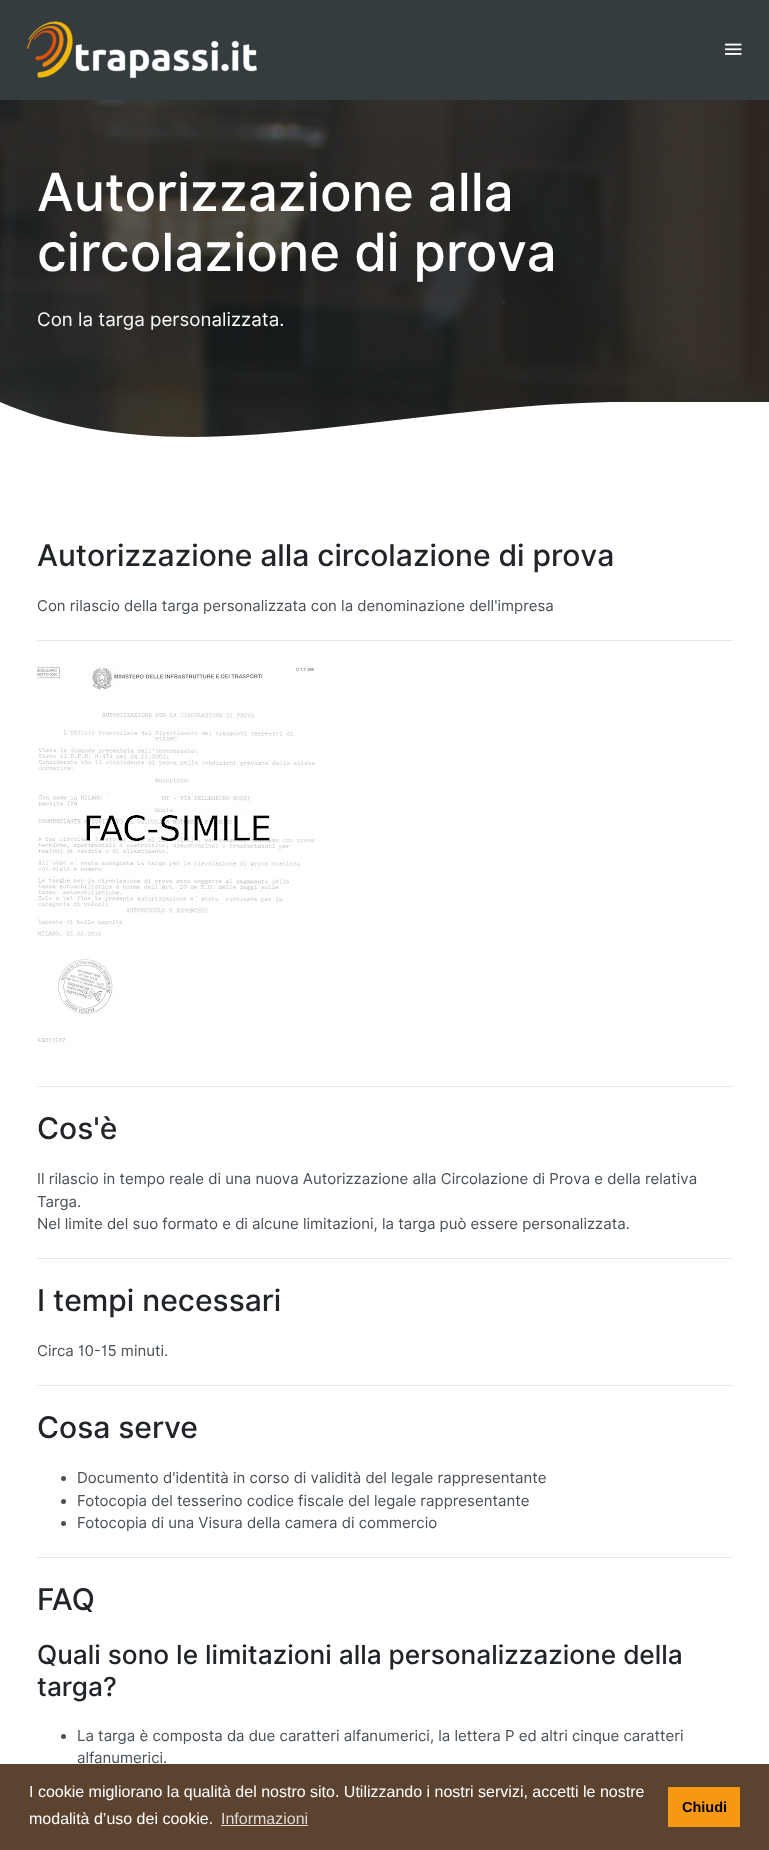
<svg xmlns="http://www.w3.org/2000/svg" width="769" height="1850">
<rect width="100%" height="100%" fill="#fff"/>
<rect width="769" height="100" fill="#353c3f"/>
<image x="26" y="21" width="232" height="58" href="media/1.png"/>
<image x="724" y="43" width="18" height="12" href="media/2.png"/>
<rect y="100" width="769" height="337" fill="#212529"/>
<image x="0" y="100" width="769" height="337" href="media/3.png"/>
<text x="37" y="211" style="font-family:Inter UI;font-size:52.5px;font-weight:500;fill:#fff">Autorizzazione alla</text>
<text x="37" y="271" style="font-family:Inter UI;font-size:52.5px;font-weight:500;fill:#fff">circolazione di prova</text>
<text x="37" y="326" style="font-family:Inter UI;font-size:18.75px;fill:#f8f9fa">Con la targa personalizzata.</text>
<path d="M0 402c53 23 117 35 192 35c127 0 289-35 433-35h144v46h-769" fill="#fff"/>
<text x="37" y="566" style="font-family:Inter UI;font-size:30px;font-weight:500;fill:#212529">Autorizzazione alla circolazione di prova</text>
<text x="37" y="611" style="font-family:Inter UI;font-size:15px;fill:#495057">Con rilascio della targa personalizzata con la denominazione dell'impresa</text>
<rect x="37" y="640" width="696" height="1" fill="#e6e6e6"/>
<image x="37" y="664" width="278" height="384" href="media/4.png"/>
<rect x="37" y="1086" width="696" height="1" fill="#e6e6e6"/>
<text x="37" y="1139" style="font-family:Inter UI;font-size:30px;font-weight:500;fill:#212529">Cos'è</text>
<text x="37" y="1184" style="font-family:Inter UI;font-size:15px;fill:#495057">Il rilascio in tempo reale di una nuova Autorizzazione alla Circolazione di Prova e della relativa</text>
<text x="37" y="1207" style="font-family:Inter UI;font-size:15px;fill:#495057">Targa.</text>
<text x="37" y="1229" style="font-family:Inter UI;font-size:15px;fill:#495057">Nel limite del suo formato e di alcune limitazioni, la targa può essere personalizzata.</text>
<rect x="37" y="1258" width="696" height="1" fill="#e6e6e6"/>
<text x="37" y="1311" style="font-family:Inter UI;font-size:30px;font-weight:500;fill:#212529">I tempi necessari</text>
<text x="37" y="1356" style="font-family:Inter UI;font-size:15px;fill:#495057">Circa 10-15 minuti.</text>
<rect x="37" y="1385" width="696" height="1" fill="#e6e6e6"/>
<text x="37" y="1438" style="font-family:Inter UI;font-size:30px;font-weight:500;fill:#212529">Cosa serve</text>
<circle cx="63.5" cy="1478.5" r="2.5" fill="#495057"/>
<text x="77" y="1483" style="font-family:Inter UI;font-size:15px;fill:#495057">Documento d'identità in corso di validità del legale rappresentante</text>
<circle cx="63.5" cy="1501.5" r="2.5" fill="#495057"/>
<text x="77" y="1506" style="font-family:Inter UI;font-size:15px;fill:#495057">Fotocopia del tesserino codice fiscale del legale rappresentante</text>
<circle cx="63.5" cy="1523.5" r="2.5" fill="#495057"/>
<text x="77" y="1528" style="font-family:Inter UI;font-size:15px;fill:#495057">Fotocopia di una Visura della camera di commercio</text>
<rect x="37" y="1557" width="696" height="1" fill="#e6e6e6"/>
<text x="37" y="1610" style="font-family:Inter UI;font-size:30px;font-weight:500;fill:#212529">FAQ</text>
<text x="37" y="1664" style="font-family:Inter UI;font-size:26.25px;font-weight:500;fill:#212529">Quali sono le limitazioni alla personalizzazione della</text>
<text x="37" y="1696" style="font-family:Inter UI;font-size:26.25px;font-weight:500;fill:#212529">targa?</text>
<circle cx="63.5" cy="1736.5" r="2.5" fill="#495057"/>
<text x="77" y="1741" style="font-family:Inter UI;font-size:15px;fill:#495057">La targa è composta da due caratteri alfanumerici, la lettera P ed altri cinque caratteri</text>
<text x="77" y="1763" style="font-family:Inter UI;font-size:15px;fill:#495057">alfanumerici.</text>
<rect y="1764" width="769" height="86" fill="#5c432f"/>
<text x="29" y="1797" style="font-family:Liberation Sans;font-size:16px;fill:#fff">I cookie migliorano la qualità del nostro sito. Utilizzando i nostri servizi, accetti le nostre</text>
<text x="29" y="1824" style="font-family:Liberation Sans;font-size:16px;fill:#fff">modalità d’uso dei cookie.</text>
<text x="221" y="1824" style="font-family:Liberation Sans;font-size:16px;fill:#ded9d5">Informazioni</text>
<rect x="221" y="1825" width="87" height="1" fill="#ded9d5"/>
<rect x="668" y="1787" width="72" height="40" fill="#f69810"/>
<text x="682" y="1812" style="font-family:Liberation Sans;font-size:14.5px;font-weight:bold;fill:#000">Chiudi</text>
</svg>
